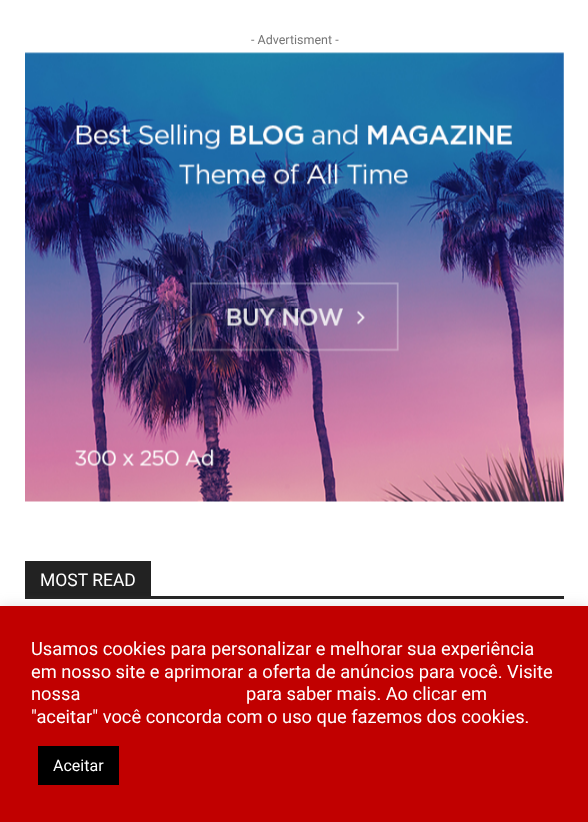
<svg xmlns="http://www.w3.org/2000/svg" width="588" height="822">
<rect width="100%" height="100%" fill="#fff"/>
<text x="251" y="44" style="font-family:Roboto;font-size:12.5px;fill:#767676">- Advertisment -</text>
<image x="25" y="52" width="539" height="450" href="media/1.png"/>
<rect x="25" y="596" width="539" height="3" fill="#222"/>
<rect x="25" y="561" width="126" height="35" fill="#222"/>
<text x="40" y="586" style="font-family:Roboto;font-size:17.5px;fill:#fff">MOST READ</text>
<rect y="605" width="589" height="216" fill="#acabab4d" filter="blur(6px)"/>
<rect y="606" width="588" height="216" fill="#c10000"/>
<text x="31" y="655" style="font-family:Roboto;font-size:18.3px;fill:#fff">Usamos cookies para personalizar e melhorar sua experiência</text>
<text x="31" y="678" style="font-family:Roboto;font-size:18.3px;fill:#fff">em nosso site e aprimorar a oferta de anúncios para você. Visite</text>
<text x="31" y="700" style="font-family:Roboto;font-size:18.3px;fill:#fff">nossa</text>
<text x="246" y="700" style="font-family:Roboto;font-size:18.3px;fill:#fff">para saber mais. Ao clicar em</text>
<text x="31" y="723" style="font-family:Roboto;font-size:18.3px;fill:#fff">"aceitar" você concorda com o uso que fazemos dos cookies.</text>
<rect x="38" y="746" width="81" height="39" fill="#000"/>
<text x="53" y="771" style="font-family:Roboto;font-size:16px;fill:#fff">Aceitar</text>
</svg>
